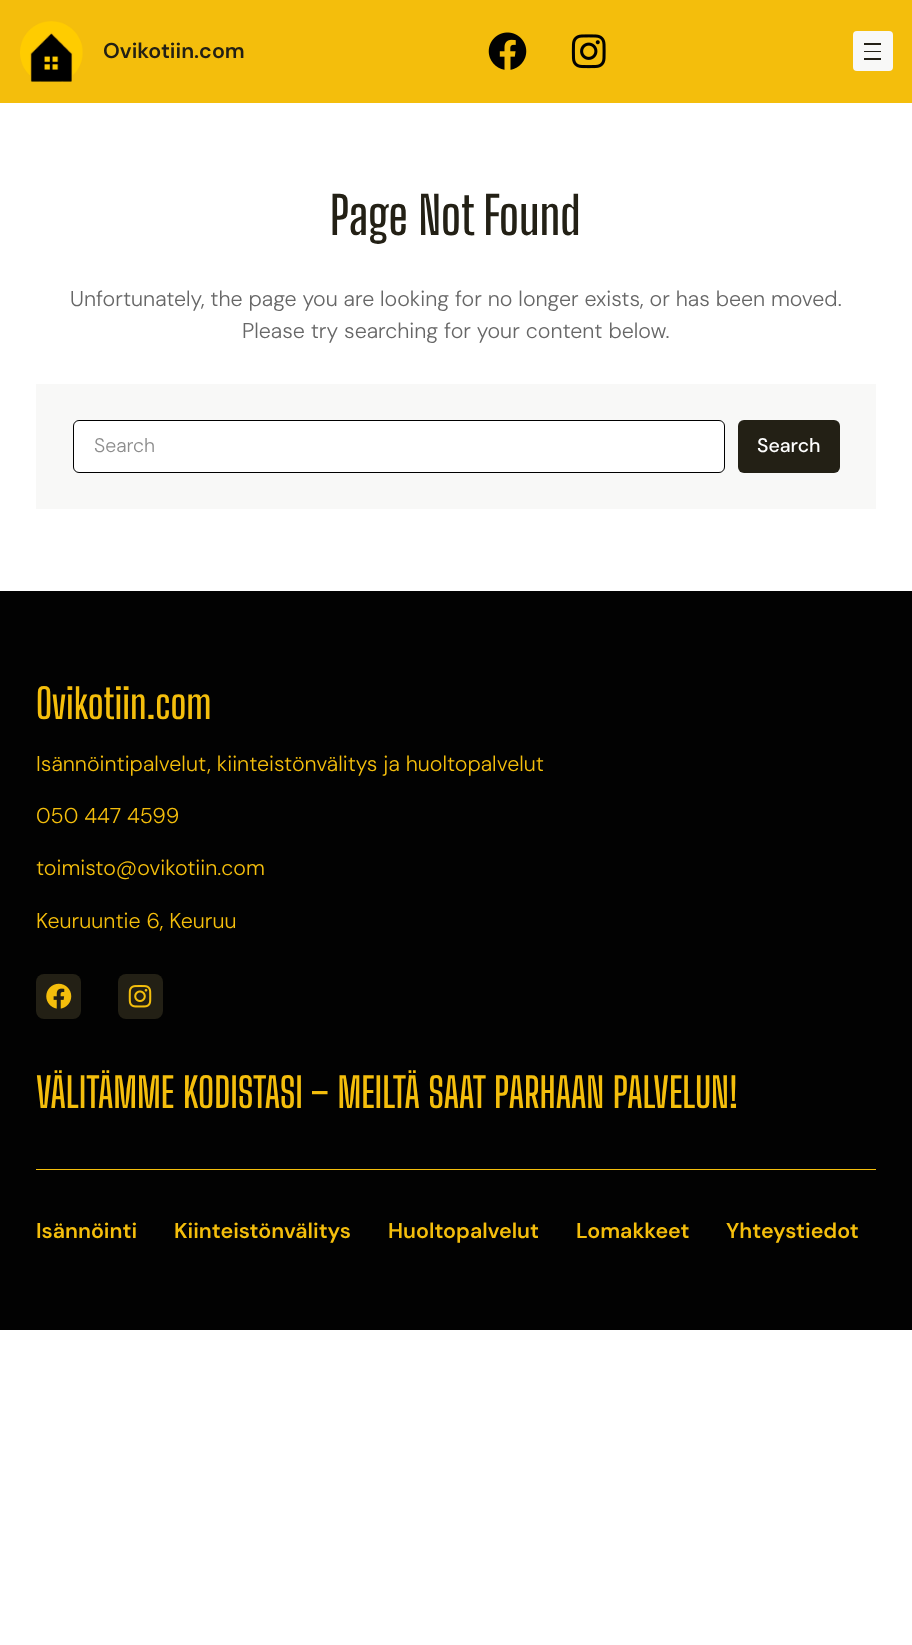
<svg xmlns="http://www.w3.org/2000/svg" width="912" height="1645">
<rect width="100%" height="100%" fill="#fff"/>
<rect width="912" height="103" fill="#f4be0c"/>
<image x="20" y="21" width="63" height="61" href="media/1.png"/>
<text x="103" y="58" style="font-family:DM Sans;font-size:21.45px;font-weight:600;fill:#232015">Ovikotiin.com</text>
<image x="488" y="32" width="39" height="38" href="media/2.png"/>
<image x="571" y="34" width="35" height="35" href="media/3.png"/>
<rect x="853" y="31" width="40" height="40" rx="4" fill="#f8f8f7"/>
<rect x="864" y="43" width="17" height="2" fill="#232015"/>
<rect x="864" y="51" width="17" height="1" fill="#232015"/>
<rect x="864" y="58" width="17" height="2" fill="#232015"/>
<text x="330" y="235" style="font-family:Big Shoulders Display;font-size:51.5px;font-weight:600;fill:#232015">Page Not Found</text>
<text x="70" y="306" style="font-family:DM Sans;font-size:21.45px;font-weight:300;fill:#676767">Unfortunately, the page you are looking for no longer exists, or has been moved.</text>
<text x="242" y="338" style="font-family:DM Sans;font-size:21.45px;font-weight:300;fill:#676767">Please try searching for your content below.</text>
<rect x="36" y="384" width="840" height="125" fill="#f8f8f7"/>
<rect x="73.5" y="420.5" width="651" height="52" rx="5.5" fill="#fff" stroke="#000"/>
<text x="94" y="452" style="font-family:'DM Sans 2';font-size:19.5px;font-weight:300;fill:#8d8d8d">Search</text>
<rect x="738" y="420" width="102" height="53" rx="6" fill="#232015"/>
<text x="757" y="452" style="font-family:DM Sans;font-size:19.5px;font-weight:500;fill:#fff">Search</text>
<rect y="591" width="912" height="739" fill="#020202"/>
<text x="36" y="719" style="font-family:Big Shoulders Display;font-size:40.9px;font-weight:600;fill:#f4be0c">Ovikotiin.com</text>
<text x="36" y="771" style="font-family:DM Sans;font-size:21.45px;font-weight:300;fill:#f4be0c">Isännöintipalvelut, kiinteistönvälitys ja huoltopalvelut</text>
<text x="36" y="823" style="font-family:DM Sans;font-size:21.45px;font-weight:300;fill:#f4be0c">050 447 4599</text>
<text x="36" y="875" style="font-family:DM Sans;font-size:21.45px;font-weight:300;fill:#f4be0c">toimisto@ovikotiin.com</text>
<text x="36" y="928" style="font-family:DM Sans;font-size:21.45px;font-weight:300;fill:#f4be0c">Keuruuntie 6, Keuruu</text>
<rect x="36" y="974" width="45" height="45" rx="8" fill="#232015"/>
<image x="46" y="983" width="26" height="26" href="media/4.png"/>
<rect x="118" y="974" width="45" height="45" rx="8" fill="#232015"/>
<image x="128" y="985" width="24" height="23" href="media/5.png"/>
<text x="36" y="1108" style="font-family:Big Shoulders Display;font-size:40.9px;font-weight:600;fill:#f4be0c">VÄLITÄMME KODISTASI – MEILTÄ SAAT PARHAAN PALVELUN!</text>
<rect x="36" y="1169" width="840" height="1" fill="#f4be0c"/>
<text x="36" y="1238" style="font-family:DM Sans;font-size:21.45px;font-weight:600;fill:#f4be0c">Isännöinti</text>
<text x="174" y="1238" style="font-family:DM Sans;font-size:21.45px;font-weight:600;fill:#f4be0c">Kiinteistönvälitys</text>
<text x="388" y="1238" style="font-family:DM Sans;font-size:21.45px;font-weight:600;fill:#f4be0c">Huoltopalvelut</text>
<text x="576" y="1238" style="font-family:DM Sans;font-size:21.45px;font-weight:600;fill:#f4be0c">Lomakkeet</text>
<text x="726" y="1238" style="font-family:DM Sans;font-size:21.45px;font-weight:600;fill:#f4be0c">Yhteystiedot</text>
</svg>
